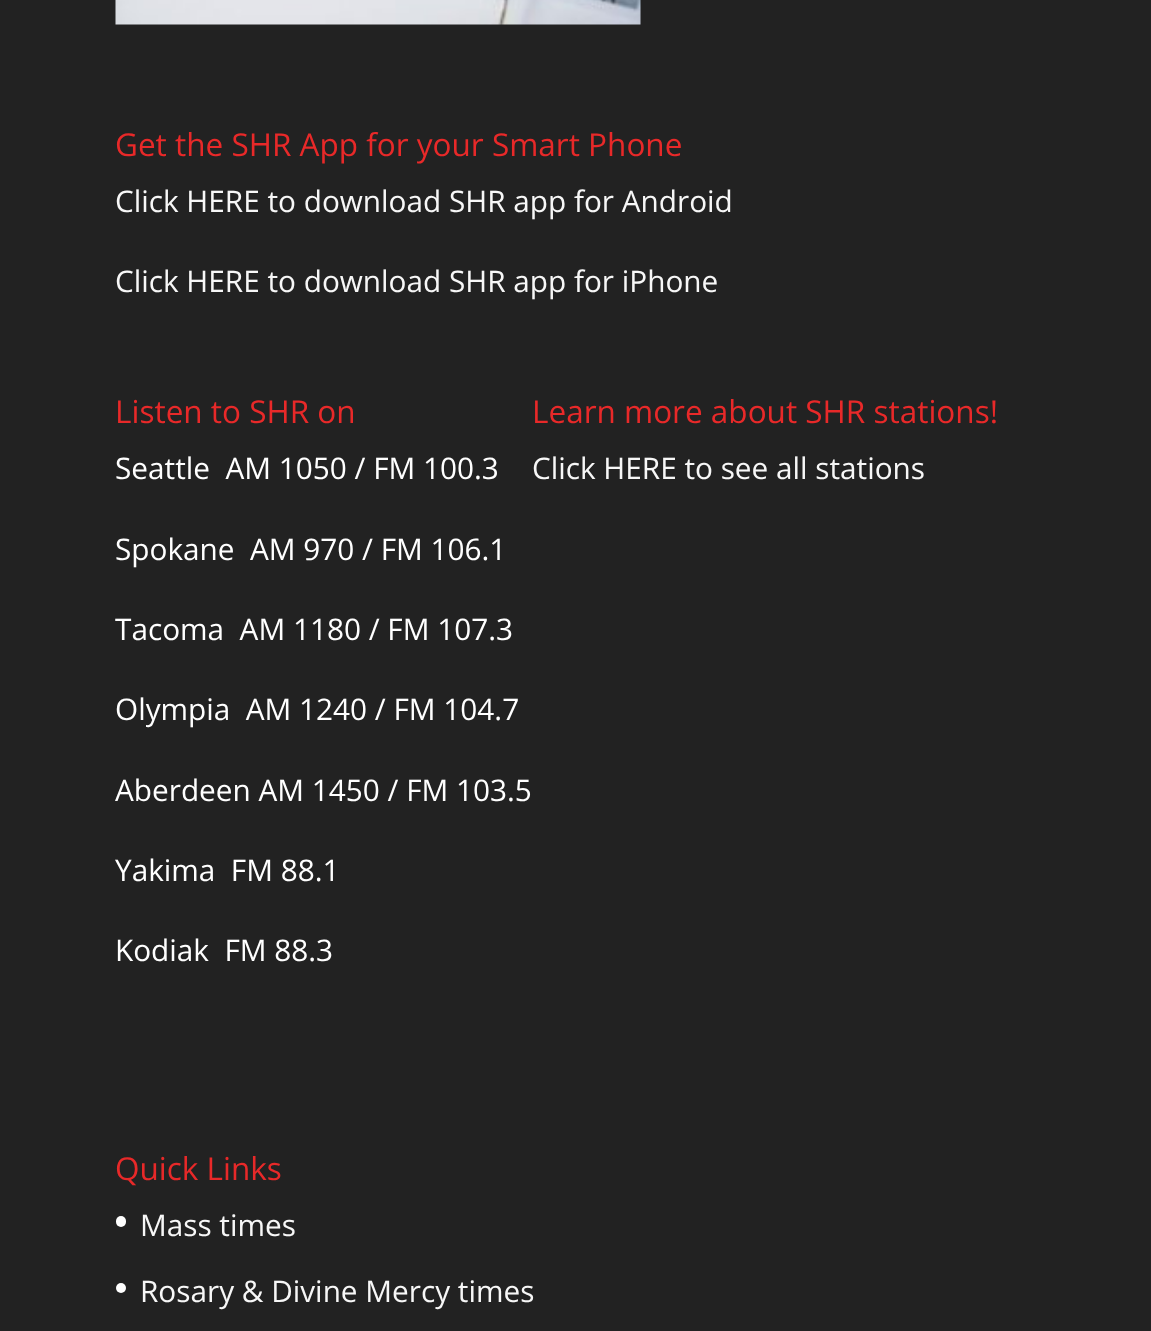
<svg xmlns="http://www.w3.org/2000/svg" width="1151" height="1331">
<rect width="100%" height="100%" fill="#222"/>
<image x="115" y="0" width="526" height="25" href="media/1.png"/>
<text x="115" y="156" style="font-family:Open Sans;font-size:31.5px;fill:#e82929">Get the SHR App for your Smart Phone</text>
<text x="115" y="212" style="font-family:Open Sans;font-size:29.75px;fill:#f7f7f7">Click HERE to download SHR app for Android</text>
<text x="115" y="292" style="font-family:Open Sans;font-size:29.75px;fill:#f7f7f7">Click HERE to download SHR app for iPhone</text>
<text x="115" y="423" style="font-family:Open Sans;font-size:31.5px;fill:#e82929">Listen to SHR on</text>
<text x="115" y="479" style="font-family:Open Sans;font-size:29.75px;fill:#fff" xml:space="preserve">Seattle  AM 1050 / FM 100.3</text>
<text x="115" y="560" style="font-family:Open Sans;font-size:29.75px;fill:#fff" xml:space="preserve">Spokane  AM 970 / FM 106.1</text>
<text x="115" y="640" style="font-family:Open Sans;font-size:29.75px;fill:#fff" xml:space="preserve">Tacoma  AM 1180 / FM 107.3</text>
<text x="115" y="720" style="font-family:Open Sans;font-size:29.75px;fill:#fff" xml:space="preserve">Olympia  AM 1240 / FM 104.7</text>
<text x="115" y="801" style="font-family:Open Sans;font-size:29.75px;fill:#fff">Aberdeen AM 1450 / FM 103.5</text>
<text x="115" y="881" style="font-family:Open Sans;font-size:29.75px;fill:#fff" xml:space="preserve">Yakima  FM 88.1</text>
<text x="115" y="961" style="font-family:Open Sans;font-size:29.75px;fill:#fff" xml:space="preserve">Kodiak  FM 88.3</text>
<text x="532" y="423" style="font-family:Open Sans;font-size:31.5px;fill:#e82929">Learn more about SHR stations!</text>
<text x="532" y="479" style="font-family:Open Sans;font-size:29.75px;fill:#f7f7f7">Click HERE to see all stations</text>
<text x="115" y="1180" style="font-family:Open Sans;font-size:31.5px;fill:#e82929">Quick Links</text>
<rect x="116" y="1216" width="10" height="11" rx="5" fill="#fff"/>
<text x="140" y="1236" style="font-family:Open Sans;font-size:29.75px;fill:#f7f7f7">Mass times</text>
<circle cx="121" cy="1288" r="5" fill="#fff"/>
<text x="140" y="1302" style="font-family:Open Sans;font-size:29.75px;fill:#f7f7f7">Rosary &amp; Divine Mercy times</text>
</svg>
